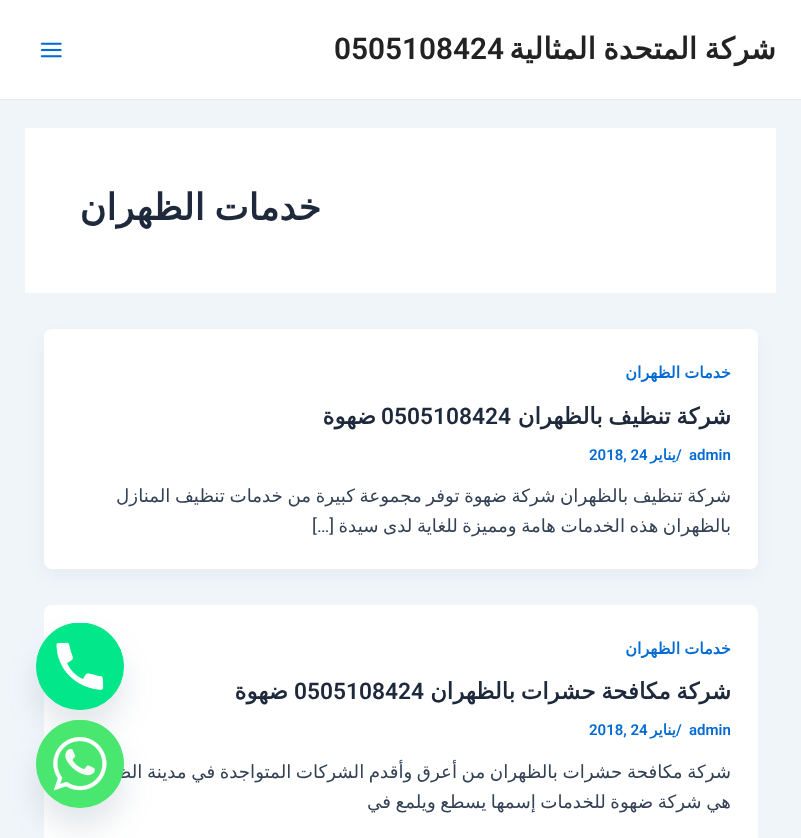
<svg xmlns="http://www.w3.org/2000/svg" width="801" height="838">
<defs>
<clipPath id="clip1"><rect x="36" y="623" width="88" height="87"/></clipPath>
</defs>
<rect width="100%" height="100%" fill="#f0f5fa"/>
<rect width="801" height="99" fill="#fff"/>
<rect y="99" width="801" height="1" fill="#eaeaea"/>
<text x="776" y="59" word-spacing="-2" style="font-family:DejaVu Sans;font-size:29.75px;font-weight:bold;direction:rtl;fill:#222">شركة المتحدة المثالية</text>
<text x="334" y="59" style="font-family:Roboto;font-size:29.75px;font-weight:600;fill:#222">0505108424</text>
<image x="40" y="42" width="22" height="16" href="media/1.png"/>
<rect x="25" y="128" width="751" height="165" fill="#fff"/>
<text x="321" y="220" word-spacing="-2" style="font-family:DejaVu Sans;font-size:36.5px;font-weight:bold;direction:rtl;fill:#1e293b">خدمات الظهران</text>
<rect x="46" y="339" width="709" height="235" rx="5" fill="#1018280d" filter="blur(9.5px)"/>
<rect x="44" y="329" width="714" height="240" rx="8" fill="#fff"/>
<text x="731" y="378" word-spacing="-1" style="font-family:DejaVu Sans;font-size:16px;font-weight:bold;direction:rtl;fill:#046bd2">خدمات الظهران</text>
<text x="731" y="424" word-spacing="-1.5" style="font-family:DejaVu Sans;font-size:22.75px;font-weight:bold;direction:rtl;fill:#1e293b">شركة تنظيف بالظهران</text>
<text x="381" y="424" style="font-family:Roboto;font-size:22.75px;font-weight:600;fill:#1e293b">0505108424</text>
<text x="376" y="424" style="font-family:DejaVu Sans;font-size:22.75px;font-weight:bold;direction:rtl;fill:#1e293b">ضهوة</text>
<text x="689" y="460" style="font-family:Roboto;font-size:15px;font-weight:600;fill:#046bd2">admin</text>
<text x="676" y="460" style="font-family:Roboto;font-size:15px;font-weight:600;fill:#046bd2">/</text>
<text x="676" y="460" style="font-family:DejaVu Sans;font-size:15px;font-weight:bold;direction:rtl;fill:#046bd2">يناير</text>
<text x="589" y="460" style="font-family:Roboto;font-size:15px;font-weight:600;fill:#046bd2">2018, 24</text>
<text x="731" y="502" word-spacing="-1.25" style="font-family:DejaVu Sans;font-size:18.25px;direction:rtl;fill:#334155">شركة تنظيف بالظهران شركة ضهوة توفر مجموعة كبيرة من خدمات تنظيف المنازل</text>
<text x="731" y="532" word-spacing="-1.25" style="font-family:DejaVu Sans;font-size:18.25px;direction:rtl;fill:#334155">بالظهران هذه الخدمات هامة ومميزة للغاية لدى سيدة</text>
<text x="334" y="532" style="font-family:Roboto;font-size:18.25px;direction:rtl;fill:#334155">[…]</text>
<rect x="44" y="605" width="714" height="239" rx="8" fill="#fff"/>
<text x="731" y="654" word-spacing="-1" style="font-family:DejaVu Sans;font-size:16px;font-weight:bold;direction:rtl;fill:#046bd2">خدمات الظهران</text>
<text x="731" y="699" word-spacing="-1.5" style="font-family:DejaVu Sans;font-size:22.75px;font-weight:bold;direction:rtl;fill:#1e293b">شركة مكافحة حشرات بالظهران</text>
<text x="294" y="699" style="font-family:Roboto;font-size:22.75px;font-weight:600;fill:#1e293b">0505108424</text>
<text x="288" y="699" style="font-family:DejaVu Sans;font-size:22.75px;font-weight:bold;direction:rtl;fill:#1e293b">ضهوة</text>
<text x="689" y="735" style="font-family:Roboto;font-size:15px;font-weight:600;fill:#046bd2">admin</text>
<text x="676" y="735" style="font-family:Roboto;font-size:15px;font-weight:600;fill:#046bd2">/</text>
<text x="676" y="735" style="font-family:DejaVu Sans;font-size:15px;font-weight:bold;direction:rtl;fill:#046bd2">يناير</text>
<text x="589" y="735" style="font-family:Roboto;font-size:15px;font-weight:600;fill:#046bd2">2018, 24</text>
<text x="731" y="778" word-spacing="-1.25" style="font-family:DejaVu Sans;font-size:18.25px;direction:rtl;fill:#334155">شركة مكافحة حشرات بالظهران من أعرق وأقدم الشركات المتواجدة في مدينة الظهران</text>
<text x="731" y="808" word-spacing="-1.25" style="font-family:DejaVu Sans;font-size:18.25px;direction:rtl;fill:#334155">هي شركة ضهوة للخدمات إسمها يسطع ويلمع في</text>
<rect x="36" y="643" width="88" height="87" rx="43.5" fill="#49687e29" filter="blur(15px)"/>
<rect x="36" y="623" width="88" height="87" rx="43.5" fill="#03e78b"/>
<g clip-path="url(#clip1)">
<circle cx="80" cy="666" r="43.5" fill="#03e78b"/>
</g>
<path d="M100 676c-3 0-12-4-14-2l-3 5c-7-3-13-9-16-16c7-4 7-3 4-11l-2-8c-1-2-4-1-6-1c-7 0-7-1-6 7c0 5 2 9 4 14c6 13 19 22 33 25c11 2 9 1 9-9c0-2-1-4-3-4z" fill="#fff"/>
<rect x="36" y="740" width="88" height="88" rx="44" fill="#49687e29" filter="blur(15px)"/>
<circle cx="80" cy="764" r="44" fill="#49e670"/>
<image x="36" y="720" width="88" height="71" href="media/2.png"/>
</svg>
